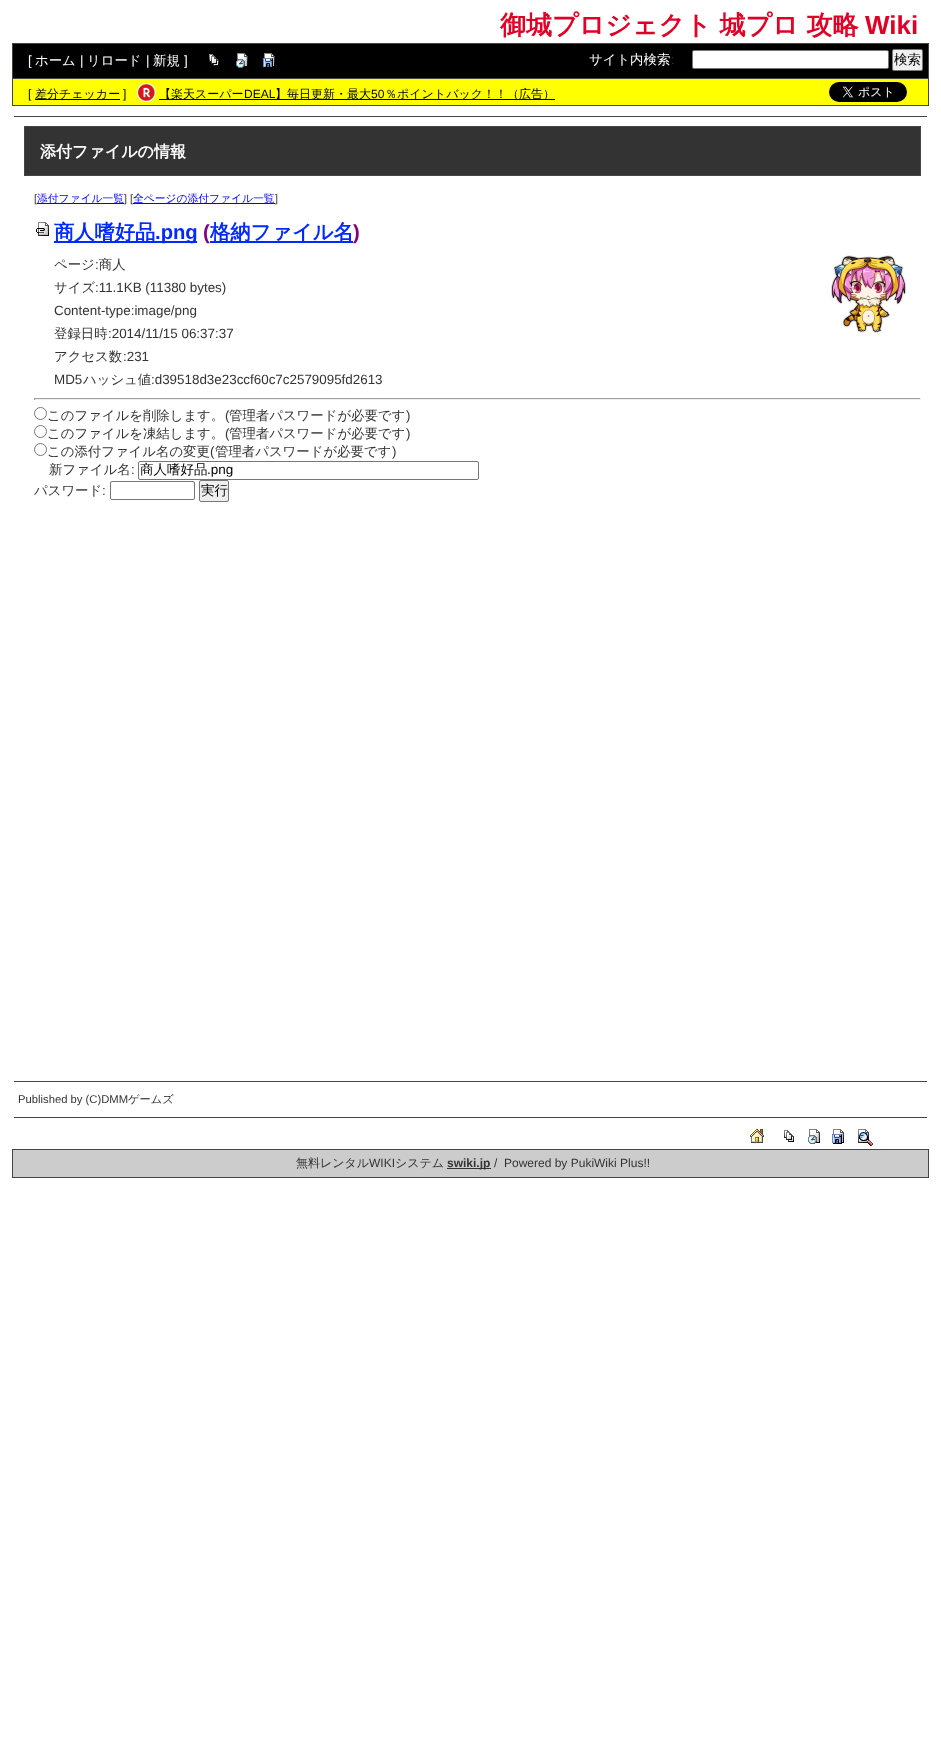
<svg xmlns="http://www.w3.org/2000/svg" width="941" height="1764">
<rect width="100%" height="100%" fill="#fff"/>
<text x="500" y="34" style="font-family:WenQuanYi Zen Hei;font-size:26px;font-weight:bold;fill:#e00025">御城プロジェクト 城プロ 攻略</text>
<text x="865" y="34" style="font-family:Liberation Sans;font-size:26px;font-weight:bold;fill:#e00025">Wiki</text>
<rect x="12.5" y="43.5" width="916" height="35" fill="#000" stroke="#444"/>
<text x="28" y="65" style="font-family:Liberation Sans;font-size:13.4px;fill:#fff">[</text>
<text x="35" y="65" style="font-family:WenQuanYi Zen Hei;font-size:13.4px;font-weight:500;fill:#fff">ホーム</text>
<text x="80" y="65" style="font-family:Liberation Sans;font-size:13.4px;fill:#fff">|</text>
<text x="87" y="65" style="font-family:WenQuanYi Zen Hei;font-size:13.4px;font-weight:500;fill:#fff">リロード</text>
<text x="146" y="65" style="font-family:Liberation Sans;font-size:13.4px;fill:#fff">|</text>
<text x="153" y="65" style="font-family:WenQuanYi Zen Hei;font-size:13.4px;font-weight:500;fill:#fff">新規</text>
<text x="184" y="65" style="font-family:Liberation Sans;font-size:13.4px;fill:#fff">]</text>
<image x="209" y="54" width="10" height="12" href="media/1.png"/>
<image x="236" y="53" width="12" height="15" href="media/2.png"/>
<image x="263" y="53" width="12" height="14" href="media/3.png"/>
<text x="589" y="64" style="font-family:WenQuanYi Zen Hei;font-size:13.4px;font-weight:500;fill:#fff">サイト内検索</text>
<text x="671" y="64" style="font-family:Liberation Sans;font-size:13.4px;fill:#333">:</text>
<rect x="692.5" y="50.5" width="196" height="18" rx="1.5" fill="#fff" stroke="#767676"/>
<rect x="892.5" y="49.5" width="30" height="21" rx="1.5" fill="#efefef" stroke="#767676"/>
<text x="894" y="64" style="font-family:WenQuanYi Zen Hei;font-size:13.5px;font-weight:500;fill:#000">検索</text>
<rect x="13" y="79" width="915" height="26" fill="#ff0"/>
<rect x="928" y="79" width="1" height="27" fill="#444"/>
<rect x="12" y="105" width="917" height="1" fill="#444"/>
<rect x="12" y="79" width="1" height="27" fill="#444"/>
<text x="28" y="98" style="font-family:Liberation Sans;font-size:12px;fill:#000">[</text>
<rect x="35" y="99" width="85" height="1" fill="#000"/>
<text x="35" y="98" style="font-family:WenQuanYi Zen Hei;font-size:12px;font-weight:500;fill:#000">差分チェッカー</text>
<text x="123" y="98" style="font-family:Liberation Sans;font-size:12px;fill:#000">]</text>
<image x="137" y="83" width="19" height="19" href="media/4.png"/>
<rect x="159" y="99" width="396" height="1" fill="#000"/>
<text x="159" y="98" style="font-family:WenQuanYi Zen Hei;font-size:12px;font-weight:500;fill:#000">【楽天スーパー</text>
<text x="244" y="98" style="font-family:Liberation Sans;font-size:12px;fill:#000">DEAL</text>
<text x="275" y="98" style="font-family:WenQuanYi Zen Hei;font-size:12px;font-weight:500;fill:#000">】毎日更新・最大</text>
<text x="371" y="98" style="font-family:Liberation Sans;font-size:12px;fill:#000">50</text>
<text x="385" y="98" style="font-family:WenQuanYi Zen Hei;font-size:12px;font-weight:500;fill:#000">％ポイントバック！！（広告）</text>
<image x="829" y="82" width="78" height="20" href="media/5.png"/>
<rect x="14" y="116" width="913" height="1" fill="#444"/>
<rect x="24.5" y="126.5" width="896" height="49" fill="#333" stroke="#444"/>
<text x="40" y="157" style="font-family:WenQuanYi Zen Hei;font-size:16px;font-weight:bold;fill:#fff">添付ファイルの情報</text>
<text x="34" y="202" style="font-family:Liberation Sans;font-size:10.75px;fill:#333">[</text>
<rect x="37" y="203" width="87" height="1" fill="#00f"/>
<text x="37" y="202" style="font-family:WenQuanYi Zen Hei;font-size:10.75px;font-weight:500;fill:#00f">添付ファイル一覧</text>
<text x="124" y="202" style="font-family:Liberation Sans;font-size:10.75px;fill:#333">] [</text>
<text x="275" y="202" style="font-family:Liberation Sans;font-size:10.75px;fill:#333">]</text>
<rect x="133" y="203" width="142" height="1" fill="#00f"/>
<text x="133" y="202" style="font-family:WenQuanYi Zen Hei;font-size:10.75px;font-weight:500;fill:#00f">全ページの添付ファイル一覧</text>
<image x="36" y="222" width="13" height="14" href="media/6.png"/>
<rect x="54" y="241" width="143" height="2" fill="#002aff"/>
<text x="54" y="239" style="font-family:WenQuanYi Zen Hei;font-size:20.25px;font-weight:bold;fill:#002aff">商人嗜好品</text>
<text x="155" y="239" style="font-family:Liberation Sans;font-size:20.25px;font-weight:bold;fill:#002aff">.png</text>
<text x="203" y="239" style="font-family:Liberation Sans;font-size:20.25px;font-weight:bold;fill:#800080">(</text>
<rect x="210" y="241" width="143" height="2" fill="#002aff"/>
<text x="210" y="239" style="font-family:WenQuanYi Zen Hei;font-size:20.25px;font-weight:bold;fill:#002aff">格納ファイル名</text>
<text x="353" y="239" style="font-family:Liberation Sans;font-size:20.25px;font-weight:bold;fill:#800080">)</text>
<text x="54" y="269" style="font-family:WenQuanYi Zen Hei;font-size:13.4px;font-weight:500;fill:#333">ページ 商人</text>
<text x="95" y="269" style="font-family:Liberation Sans;font-size:13.4px;fill:#333">:</text>
<text x="54" y="292" style="font-family:WenQuanYi Zen Hei;font-size:13.4px;font-weight:500;fill:#333">サイズ</text>
<text x="95" y="292" style="font-family:Liberation Sans;font-size:13.4px;fill:#333">:11.1KB (11380 bytes)</text>
<text x="54" y="315" style="font-family:Liberation Sans;font-size:13.4px;fill:#333">Content-type:image/png</text>
<text x="54" y="338" style="font-family:WenQuanYi Zen Hei;font-size:13.4px;font-weight:500;fill:#333">登録日時</text>
<text x="108" y="338" style="font-family:Liberation Sans;font-size:13.4px;fill:#333">:2014/11/15 06:37:37</text>
<text x="54" y="361" style="font-family:WenQuanYi Zen Hei;font-size:13.4px;font-weight:500;fill:#333">アクセス数</text>
<text x="123" y="361" style="font-family:Liberation Sans;font-size:13.4px;fill:#333">:231</text>
<text x="54" y="384" style="font-family:Liberation Sans;font-size:13.4px;fill:#333">MD5</text>
<text x="83" y="384" style="font-family:WenQuanYi Zen Hei;font-size:13.4px;font-weight:500;fill:#333">ハッシュ値</text>
<text x="151" y="384" style="font-family:Liberation Sans;font-size:13.4px;fill:#333">:d39518d3e23ccf60c7c2579095fd2613</text>
<image x="831" y="255" width="75" height="78" href="media/7.png"/>
<rect x="34" y="398" width="887" height="1" fill="#9f9f9f"/>
<rect x="920" y="398" width="1" height="2" fill="#eee"/>
<rect x="34" y="399" width="887" height="1" fill="#eee"/>
<rect x="34" y="398" width="1" height="2" fill="#9f9f9f"/>
<circle cx="40.5" cy="413.5" r="6" fill="none" stroke="#767676"/>
<text x="47" y="420" style="font-family:WenQuanYi Zen Hei;font-size:13.4px;font-weight:500;fill:#333">このファイルを削除します。</text>
<text x="225" y="420" style="font-family:Liberation Sans;font-size:13.4px;fill:#333">(</text>
<text x="229" y="420" style="font-family:WenQuanYi Zen Hei;font-size:13.4px;font-weight:500;fill:#333">管理者パスワードが必要です</text>
<text x="406" y="420" style="font-family:Liberation Sans;font-size:13.4px;fill:#333">)</text>
<circle cx="40.5" cy="431.5" r="6" fill="none" stroke="#767676"/>
<text x="47" y="438" style="font-family:WenQuanYi Zen Hei;font-size:13.4px;font-weight:500;fill:#333">このファイルを凍結します。</text>
<text x="225" y="438" style="font-family:Liberation Sans;font-size:13.4px;fill:#333">(</text>
<text x="229" y="438" style="font-family:WenQuanYi Zen Hei;font-size:13.4px;font-weight:500;fill:#333">管理者パスワードが必要です</text>
<text x="406" y="438" style="font-family:Liberation Sans;font-size:13.4px;fill:#333">)</text>
<circle cx="40.5" cy="449.5" r="6" fill="none" stroke="#767676"/>
<text x="47" y="456" style="font-family:WenQuanYi Zen Hei;font-size:13.4px;font-weight:500;fill:#333">この添付ファイル名の変更</text>
<text x="210" y="456" style="font-family:Liberation Sans;font-size:13.4px;fill:#333">(</text>
<text x="215" y="456" style="font-family:WenQuanYi Zen Hei;font-size:13.4px;font-weight:500;fill:#333">管理者パスワードが必要です</text>
<text x="392" y="456" style="font-family:Liberation Sans;font-size:13.4px;fill:#333">)</text>
<text x="49" y="474" style="font-family:WenQuanYi Zen Hei;font-size:13.4px;font-weight:500;fill:#333">新ファイル名</text>
<text x="131" y="474" style="font-family:Liberation Sans;font-size:13.4px;fill:#333">:</text>
<rect x="138.5" y="461.5" width="340" height="18" rx="1.5" fill="none" stroke="#767676"/>
<text x="140" y="474" style="font-family:WenQuanYi Zen Hei;font-size:13.5px;font-weight:500;fill:#000">商人嗜好品</text>
<text x="207" y="474" style="font-family:Liberation Sans;font-size:13.5px;fill:#000">.png</text>
<text x="34" y="495" style="font-family:WenQuanYi Zen Hei;font-size:13.4px;font-weight:500;fill:#333">パスワード</text>
<text x="102" y="495" style="font-family:Liberation Sans;font-size:13.4px;fill:#333">:</text>
<rect x="110.5" y="481.5" width="84" height="18" rx="1.5" fill="none" stroke="#767676"/>
<rect x="199.5" y="480.5" width="29" height="21" rx="1.5" fill="#efefef" stroke="#767676"/>
<text x="201" y="495" style="font-family:WenQuanYi Zen Hei;font-size:13.5px;font-weight:500;fill:#000">実行</text>
<rect x="14" y="1081" width="913" height="1" fill="#444"/>
<text x="18" y="1103" style="font-family:Liberation Sans;font-size:11.25px;fill:#333">Published by (C)DMM</text>
<text x="128" y="1103" style="font-family:WenQuanYi Zen Hei;font-size:11.25px;font-weight:500;fill:#333">ゲームズ</text>
<rect x="14" y="1117" width="913" height="1" fill="#444"/>
<image x="750" y="1129" width="14" height="14" href="media/8.png"/>
<image x="784" y="1130" width="10" height="12" href="media/9.png"/>
<image x="808" y="1129" width="12" height="15" href="media/10.png"/>
<image x="832" y="1129" width="12" height="15" href="media/11.png"/>
<image x="858" y="1129" width="15" height="17" href="media/12.png"/>
<rect x="12.5" y="1149.5" width="916" height="28" fill="#ccc" stroke="#444"/>
<text x="296" y="1167" style="font-family:WenQuanYi Zen Hei;font-size:12px;font-weight:500;fill:#333">無料レンタル</text>
<text x="369" y="1167" style="font-family:Liberation Sans;font-size:12px;fill:#333">WIKI</text>
<text x="395" y="1167" style="font-family:WenQuanYi Zen Hei;font-size:12px;font-weight:500;fill:#333">システム</text>
<rect x="447" y="1168" width="44" height="1" fill="#333"/>
<text x="447" y="1167" style="font-family:Liberation Sans;font-size:12px;font-weight:bold;fill:#333">swiki.jp</text>
<text x="494" y="1167" style="font-family:Liberation Sans;font-size:12px;fill:#333">/</text>
<text x="504" y="1167" style="font-family:Liberation Sans;font-size:12px;fill:#333">Powered by PukiWiki Plus!!</text>
</svg>
